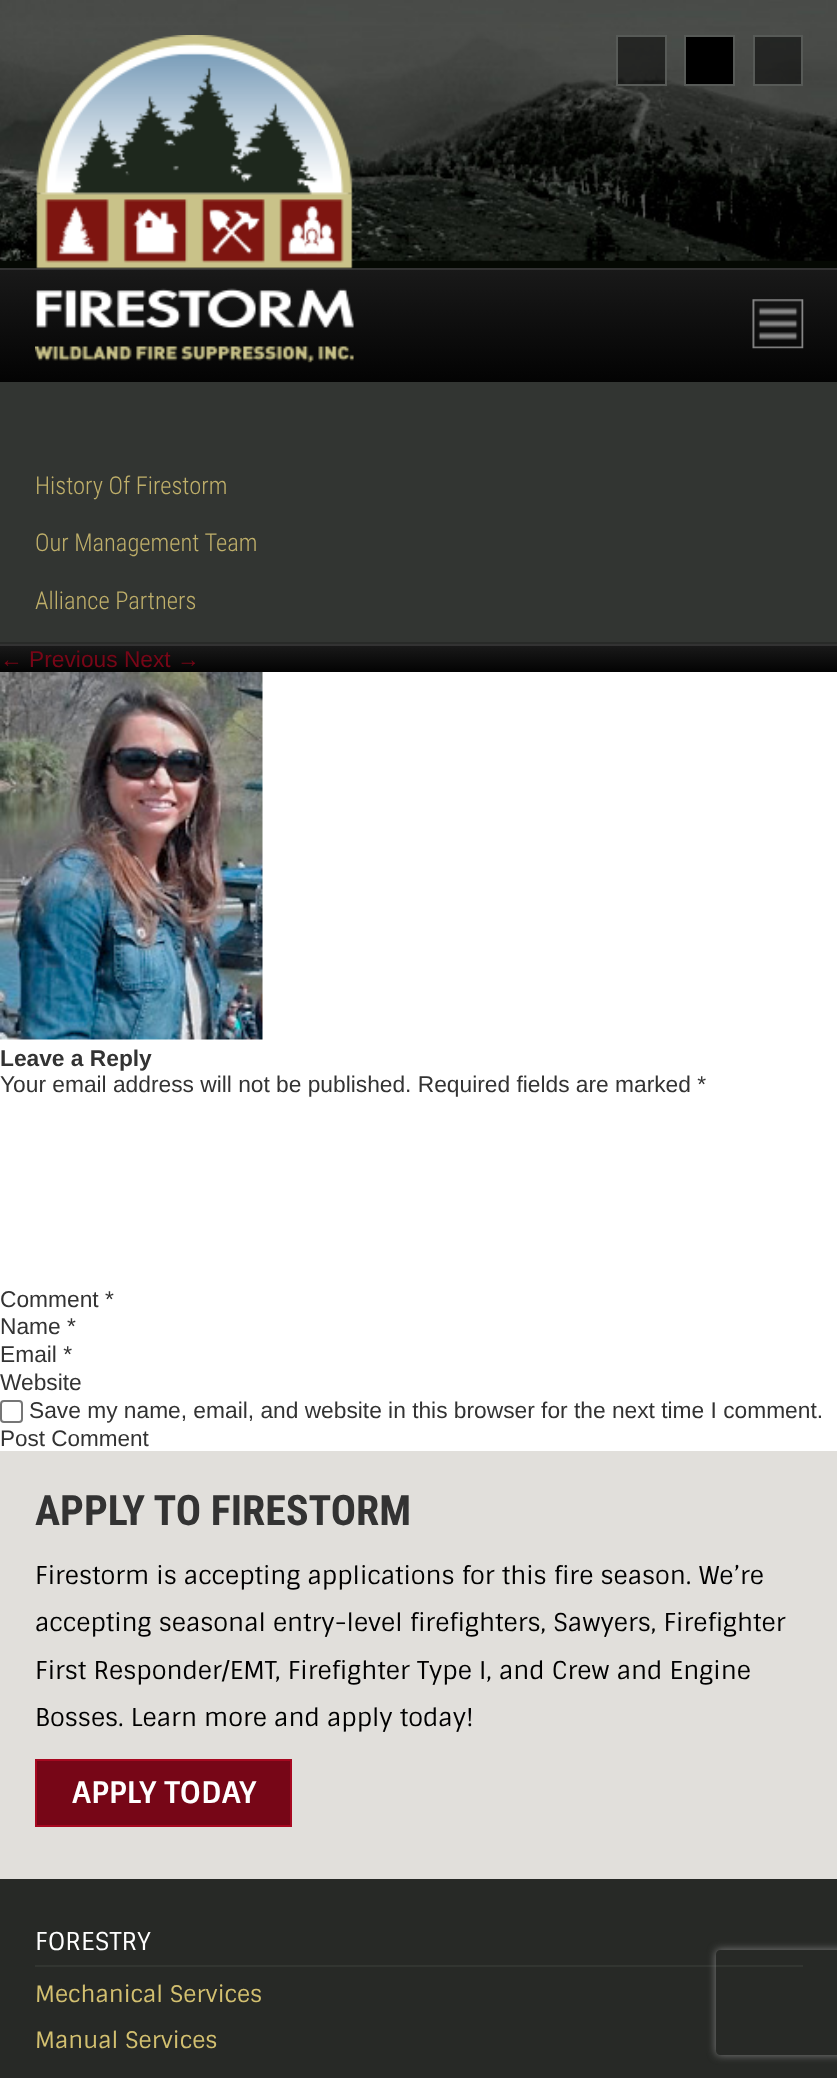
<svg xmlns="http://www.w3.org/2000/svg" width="837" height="2078">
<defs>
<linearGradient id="g1" gradientUnits="userSpaceOnUse" x1="419" y1="269" x2="419" y2="382"><stop offset="0" stop-color="#191919"/><stop offset="1" stop-color="#030303"/></linearGradient>
<linearGradient id="g2" gradientUnits="userSpaceOnUse" x1="419" y1="646" x2="419" y2="672"><stop offset="0" stop-color="#191919"/><stop offset="1" stop-color="#030303"/></linearGradient>
<clipPath id="clip1"><path d="M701 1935h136v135h-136zm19 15h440c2 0 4 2 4 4v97c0 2-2 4-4 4h-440c-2 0-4-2-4-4v-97c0-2 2-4 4-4z" clip-rule="evenodd"/></clipPath>
</defs>
<rect width="100%" height="100%" fill="#fff"/>
<rect y="260" width="837" height="8" fill="#050903"/>
<image x="0" y="0" width="837" height="261" href="media/1.png"/>
<rect y="270" width="837" height="112" fill="url(#g1)"/>
<rect y="268" width="837" height="2" fill="#333"/>
<image x="35" y="35" width="319" height="328" href="media/2.png"/>
<rect x="617" y="36" width="49" height="49" fill="#00000080" stroke="#575a57" stroke-width="2"/>
<rect x="685" y="36" width="49" height="49" fill="#000" stroke="#575a57" stroke-width="2"/>
<rect x="754" y="36" width="48" height="49" fill="#00000080" stroke="#575a57" stroke-width="2"/>
<image x="752" y="299" width="52" height="50" href="media/3.png"/>
<rect y="382" width="837" height="260" fill="#323532"/>
<rect y="642" width="837" height="2" fill="#282a28"/>
<text x="35" y="494" style="font-family:Roboto Condensed;font-size:24.5px;font-weight:300;fill:#bfaf6a">History Of Firestorm</text>
<text x="35" y="551" style="font-family:Roboto Condensed;font-size:24.5px;font-weight:300;fill:#bfaf6a">Our Management Team</text>
<text x="35" y="609" style="font-family:Roboto Condensed;font-size:24.5px;font-weight:300;fill:#bfaf6a">Alliance Partners</text>
<rect y="646" width="837" height="26" fill="url(#g2)"/>
<rect y="644" width="837" height="2" fill="#333"/>
<text x="0" y="667" style="font-family:Liberation Sans;font-size:22.75px;fill:#770617">← Previous Next →</text>
<image x="0" y="672" width="263" height="368" href="media/4.png"/>
<text x="0" y="1066" style="font-family:Liberation Sans;font-size:22.75px;font-weight:bold;fill:#333">Leave a Reply</text>
<text x="0" y="1092" style="font-family:Liberation Sans;font-size:22.75px;fill:#333">Your email address will not be published. Required fields are marked *</text>
<text x="0" y="1307" style="font-family:Liberation Sans;font-size:22.75px;fill:#333">Comment *</text>
<text x="0" y="1334" style="font-family:Liberation Sans;font-size:22.75px;fill:#333">Name *</text>
<text x="0" y="1362" style="font-family:Liberation Sans;font-size:22.75px;fill:#333">Email *</text>
<text x="0" y="1390" style="font-family:Liberation Sans;font-size:22.75px;fill:#333">Website</text>
<rect x="1" y="1401" width="21" height="21" rx="3" fill="none" stroke="#767676" stroke-width="2"/>
<text x="29" y="1418" style="font-family:Liberation Sans;font-size:22.75px;fill:#333">Save my name, email, and website in this browser for the next time I comment.</text>
<text x="0" y="1446" style="font-family:Liberation Sans;font-size:22.5px;fill:#333">Post Comment</text>
<rect y="1451" width="837" height="428" fill="#e1dfdb"/>
<text x="35" y="1525" style="font-family:Roboto Condensed;font-size:42px;font-weight:bold;fill:#333">APPLY TO FIRESTORM</text>
<text x="35" y="1584" style="font-family:Sintony;font-size:24.5px;fill:#000">Firestorm is accepting applications for this fire season. We’re</text>
<text x="35" y="1631" style="font-family:Sintony;font-size:24.5px;fill:#000">accepting seasonal entry-level firefighters, Sawyers, Firefighter</text>
<text x="35" y="1679" style="font-family:Sintony;font-size:24.5px;fill:#000">First Responder/EMT, Firefighter Type I, and Crew and Engine</text>
<text x="35" y="1726" style="font-family:Sintony;font-size:24.5px;fill:#000">Bosses. Learn more and apply today!</text>
<rect x="36" y="1760" width="255" height="66" fill="#770617" stroke="#a70820" stroke-width="2"/>
<text x="72" y="1803" style="font-family:Sintony;font-size:29.75px;font-weight:bold;fill:#fff">APPLY TODAY</text>
<rect y="1879" width="837" height="199" fill="#272926"/>
<rect x="35" y="1965" width="768" height="2" fill="#323531"/>
<text x="35" y="1950" style="font-family:Sintony;font-size:24.5px;fill:#fff">FORESTRY</text>
<text x="35" y="2002" style="font-family:Sintony;font-size:22.75px;fill:#d3c070">Mechanical Services</text>
<text x="35" y="2048" style="font-family:Sintony;font-size:22.75px;fill:#d3c070">Manual Services</text>
<g clip-path="url(#clip1)">
<rect x="716" y="1950" width="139" height="105" rx="4" fill="#808080" filter="blur(4.5px)"/>
</g>
</svg>
